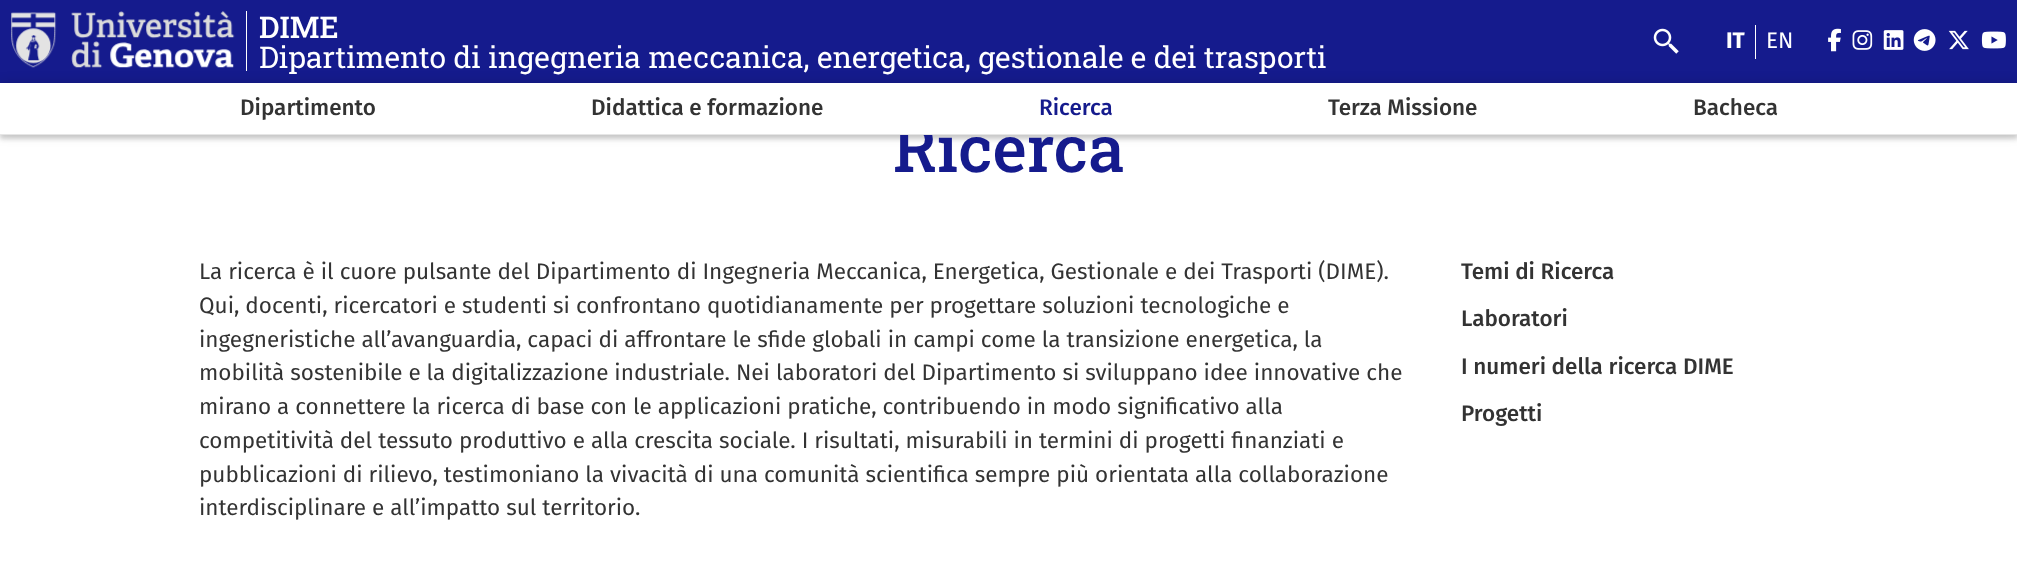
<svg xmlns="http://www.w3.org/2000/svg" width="2017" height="562">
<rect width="100%" height="100%" fill="#fff"/>
<rect width="2017" height="83" fill="#151b8d"/>
<image x="11" y="11" width="224" height="57" href="media/1.png"/>
<rect x="246" y="11" width="1" height="60" fill="#fff"/>
<text x="259" y="38" style="font-family:Roboto Slab;font-size:30px;font-weight:500;fill:#fff">DIME</text>
<text x="259" y="68" style="font-family:Roboto Slab;font-size:30px;fill:#fff">Dipartimento di ingegneria meccanica, energetica, gestionale e dei trasporti</text>
<image x="1653" y="28" width="26" height="26" href="media/2.png"/>
<text x="1726" y="48" style="font-family:Fira Sans;font-size:22.5px;font-weight:bold;fill:#fff">IT</text>
<rect x="1755" y="25" width="1" height="34" fill="#fff"/>
<text x="1766" y="48" style="font-family:Fira Sans;font-size:22.5px;fill:#fff">EN</text>
<image x="1828" y="28" width="13" height="24" href="media/3.png"/>
<image x="1852" y="30" width="21" height="20" href="media/4.png"/>
<image x="1883" y="30" width="21" height="20" href="media/5.png"/>
<image x="1913" y="29" width="23" height="22" href="media/6.png"/>
<image x="1948" y="30" width="21" height="20" href="media/7.png"/>
<image x="1981" y="31" width="25" height="18" href="media/8.png"/>
<rect y="86" width="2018" height="53" fill="#00000026" filter="blur(2px)"/>
<rect y="83" width="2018" height="52" fill="#00000026" filter="blur(6px)"/>
<text x="893" y="172" style="font-family:Roboto Slab;font-size:65px;font-weight:500;fill:#151b8d">Ricerca</text>
<rect y="83" width="2017" height="51" fill="#fff"/>
<rect y="134" width="2017" height="1" fill="#e6e6e6"/>
<text x="240" y="115" style="font-family:Fira Sans;font-size:22.5px;font-weight:500;fill:#333">Dipartimento</text>
<text x="591" y="115" style="font-family:Fira Sans;font-size:22.5px;font-weight:500;fill:#333">Didattica e formazione</text>
<text x="1039" y="115" style="font-family:Fira Sans;font-size:22.5px;font-weight:500;fill:#151b8d">Ricerca</text>
<text x="1328" y="115" style="font-family:Fira Sans;font-size:22.5px;font-weight:500;fill:#333">Terza Missione</text>
<text x="1693" y="115" style="font-family:Fira Sans;font-size:22.5px;font-weight:500;fill:#333">Bacheca</text>
<text x="199" y="279" style="font-family:Fira Sans;font-size:22.5px;fill:#333">La ricerca è il cuore pulsante del Dipartimento di Ingegneria Meccanica, Energetica, Gestionale e dei Trasporti (DIME).</text>
<text x="199" y="313" style="font-family:Fira Sans;font-size:22.5px;fill:#333">Qui, docenti, ricercatori e studenti si confrontano quotidianamente per progettare soluzioni tecnologiche e</text>
<text x="199" y="347" style="font-family:Fira Sans;font-size:22.5px;fill:#333">ingegneristiche all’avanguardia, capaci di affrontare le sfide globali in campi come la transizione energetica, la</text>
<text x="199" y="380" style="font-family:Fira Sans;font-size:22.5px;fill:#333">mobilità sostenibile e la digitalizzazione industriale. Nei laboratori del Dipartimento si sviluppano idee innovative che</text>
<text x="199" y="414" style="font-family:Fira Sans;font-size:22.5px;fill:#333">mirano a connettere la ricerca di base con le applicazioni pratiche, contribuendo in modo significativo alla</text>
<text x="199" y="448" style="font-family:Fira Sans;font-size:22.5px;fill:#333">competitività del tessuto produttivo e alla crescita sociale. I risultati, misurabili in termini di progetti finanziati e</text>
<text x="199" y="482" style="font-family:Fira Sans;font-size:22.5px;fill:#333">pubblicazioni di rilievo, testimoniano la vivacità di una comunità scientifica sempre più orientata alla collaborazione</text>
<text x="199" y="515" style="font-family:Fira Sans;font-size:22.5px;fill:#333">interdisciplinare e all’impatto sul territorio.</text>
<text x="1461" y="279" style="font-family:Fira Sans;font-size:22.5px;font-weight:500;fill:#333">Temi di Ricerca</text>
<text x="1461" y="326" style="font-family:Fira Sans;font-size:22.5px;font-weight:500;fill:#333">Laboratori</text>
<text x="1461" y="374" style="font-family:Fira Sans;font-size:22.5px;font-weight:500;fill:#333">I numeri della ricerca DIME</text>
<text x="1461" y="421" style="font-family:Fira Sans;font-size:22.5px;font-weight:500;fill:#333">Progetti</text>
</svg>
